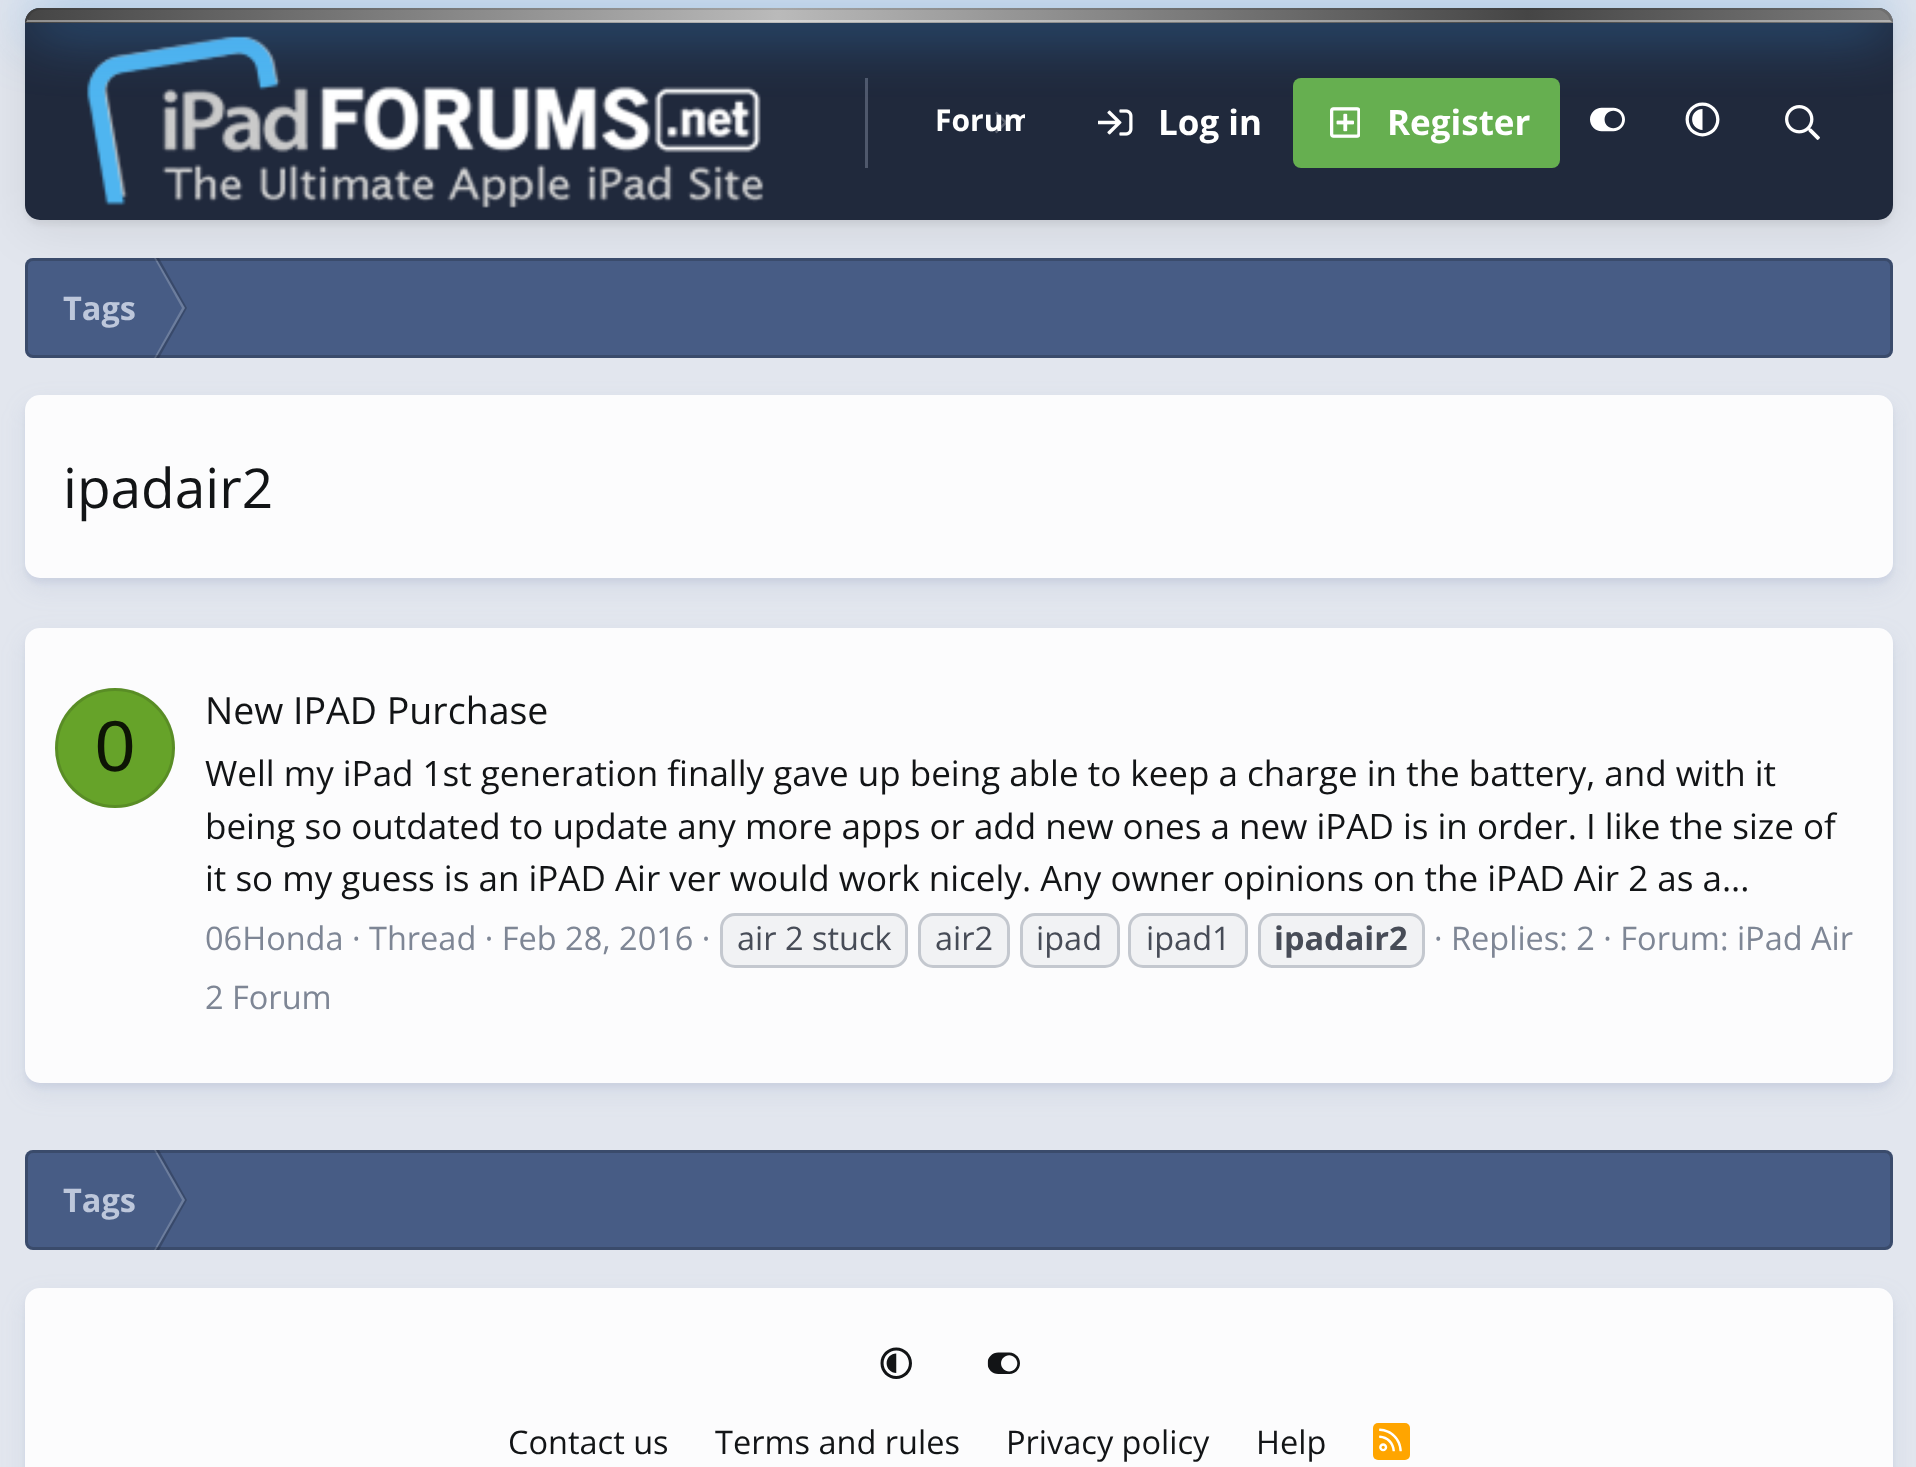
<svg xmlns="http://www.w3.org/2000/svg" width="1916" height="1467">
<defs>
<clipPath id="clip1"><path d="M40 8h1838c8.5 0 15 6.5 15 15h-1868c0-8.5 6.5-15 15-15z"/></clipPath>
<linearGradient id="g1" gradientUnits="userSpaceOnUse" x1="-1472" y1="15" x2="28" y2="15"><stop offset="0" stop-color="#454545"/><stop offset="0.5" stop-color="#bababa"/><stop offset="1" stop-color="#454545"/></linearGradient>
<linearGradient id="g2" gradientUnits="userSpaceOnUse" x1="28" y1="15" x2="1528" y2="15"><stop offset="0" stop-color="#454545"/><stop offset="0.5" stop-color="#bababa"/><stop offset="1" stop-color="#454545"/></linearGradient>
<linearGradient id="g3" gradientUnits="userSpaceOnUse" x1="1528" y1="15" x2="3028" y2="15"><stop offset="0" stop-color="#454545"/><stop offset="0.5" stop-color="#bababa"/><stop offset="1" stop-color="#454545"/></linearGradient>
<clipPath id="clip2"><rect x="905" y="78" width="120" height="90"/></clipPath>
</defs>
<rect width="100%" height="100%" fill="#e2e6ee"/>
<rect x="25" y="18" width="1868" height="212" rx="15" fill="#00000014" filter="blur(25px)"/>
<rect x="25" y="13" width="1868" height="212" rx="15" fill="#0000000d" filter="blur(2.5px)"/>
<rect x="25" y="8" width="1868" height="212" rx="15" fill="#20293c"/>
<image x="86" y="36" width="678" height="172" href="media/1.png"/>
<rect x="865" y="78" width="3" height="90" fill="#4f586c"/>
<image x="1590" y="107" width="35" height="25" href="media/5.png"/>
<image x="1685" y="102" width="35" height="35" href="media/6.png"/>
<rect x="25" y="8" width="1868" height="15" rx="15" fill="#3d9aeb" filter="blur(31px)"/>
<g clip-path="url(#clip1)">
<rect x="25" y="8" width="3" height="15" fill="url(#g1)"/>
<rect x="28" y="8" width="1500" height="15" fill="url(#g2)"/>
<rect x="1528" y="8" width="365" height="15" fill="url(#g3)"/>
</g>
<path d="M40 8c-4 0-8 2-10 4l1 2c2-2 5-4 9-4h1838c3 0 6 2 8 4l2-2c-2-2-6-4-10-4z" fill="#0000001a"/>
<path d="M1892 22c0-4-1.5-7.5-4-10l-2 2c2 1.5 3 3.5 3.5 5.5z" fill="#0000001a"/>
<path d="M1892 22l-2-2h-1862v-1l-2 3zm-2 0v-2zm-1862 0v-2z" fill="#ffffff66" fill-rule="evenodd"/>
<path d="M25 22h.5l3-3c.5-2 1.5-3.5 3-5l-2-2c-2.5 2.5-4.5 6-4.5 10z" fill="#0000001a"/>
<g clip-path="url(#clip2)">
<text x="935" y="131" style="font-family:Open Sans;font-size:30px;font-weight:bold;fill:#fff">Forum</text>
</g>
<image x="995" y="111" width="11" height="23" href="media/2.png"/>
<image x="1098" y="109" width="35" height="27" href="media/3.png"/>
<text x="1158" y="135" style="font-family:Open Sans;font-size:35px;font-weight:bold;fill:#fff">Log in</text>
<rect x="1293" y="78" width="267" height="90" rx="8" fill="#66af50"/>
<image x="1330" y="107" width="30" height="31" href="media/4.png"/>
<text x="1387" y="135" style="font-family:Open Sans;font-size:35px;font-weight:bold;fill:#fff">Register</text>
<image x="1785" y="105" width="35" height="35" href="media/7.png"/>
<rect x="25" y="258" width="1868" height="100" rx="8" fill="#475c85"/>
<path d="M154 258h2l29 50h-3z" fill="#6c7d9d"/>
<path d="M156 258h3l28 50h-2z" fill="#00000033"/>
<path d="M182 308h3l-29 50h-2z" fill="#6c7d9d"/>
<path d="M185 308h2l-28 50h-3z" fill="#00000033"/>
<rect x="26.5" y="259.5" width="1865" height="97" rx="6.5" fill="none" stroke="#12172140" stroke-width="3"/>
<text x="63" y="320" style="font-family:Open Sans;font-size:32.5px;font-weight:bold;fill:#bdc7db">Tags</text>
<rect x="25" y="405" width="1868" height="183" rx="15" fill="#7a8fb81f" filter="blur(12.5px)"/>
<rect x="25" y="400" width="1868" height="183" rx="15" fill="#7a8fb81f" filter="blur(2.5px)"/>
<rect x="25" y="395" width="1868" height="183" rx="15" fill="#fcfcfd"/>
<text x="63" y="508" style="font-family:Open Sans;font-size:55px;fill:#121416">ipadair2</text>
<rect x="25" y="638" width="1868" height="455" rx="15" fill="#7a8fb81f" filter="blur(12.5px)"/>
<rect x="25" y="633" width="1868" height="455" rx="15" fill="#7a8fb81f" filter="blur(2.5px)"/>
<rect x="25" y="628" width="1868" height="455" rx="15" fill="#fcfcfd"/>
<circle cx="115" cy="748" r="60" fill="#66a329"/>
<text x="95" y="771" style="font-family:Liberation Sans;font-size:72px;fill:#0d1405">0</text>
<circle cx="115" cy="748" r="58.5" fill="none" stroke="#12141626" stroke-width="3"/>
<text x="205" y="724" style="font-family:Open Sans;font-size:37.5px;fill:#121416">New IPAD Purchase</text>
<text x="205" y="786" style="font-family:Open Sans;font-size:35px;fill:#121416">Well my iPad 1st generation finally gave up being able to keep a charge in the battery, and with it</text>
<text x="205" y="839" style="font-family:Open Sans;font-size:35px;fill:#121416">being so outdated to update any more apps or add new ones a new iPAD is in order. I like the size of</text>
<text x="205" y="891" style="font-family:Open Sans;font-size:35px;fill:#121416">it so my guess is an iPAD Air ver would work nicely. Any owner opinions on the iPAD Air 2 as a...</text>
<text x="205" y="950" style="font-family:Open Sans;font-size:32.5px;fill:#7e8695">06Honda · Thread · Feb 28, 2016 ·</text>
<rect x="721.5" y="914.5" width="185" height="52" rx="13.5" fill="#f1f2f4" stroke="#c4c8cf" stroke-width="3"/>
<text x="737" y="950" style="font-family:Open Sans;font-size:32.5px;fill:#474c57">air 2 stuck</text>
<rect x="919.5" y="914.5" width="89" height="52" rx="13.5" fill="#f1f2f4" stroke="#c4c8cf" stroke-width="3"/>
<text x="935" y="950" style="font-family:Open Sans;font-size:32.5px;fill:#474c57">air2</text>
<rect x="1021.5" y="914.5" width="97" height="52" rx="13.5" fill="#f1f2f4" stroke="#c4c8cf" stroke-width="3"/>
<text x="1036" y="950" style="font-family:Open Sans;font-size:32.5px;fill:#474c57">ipad</text>
<rect x="1129.5" y="914.5" width="117" height="52" rx="13.5" fill="#f1f2f4" stroke="#c4c8cf" stroke-width="3"/>
<text x="1146" y="950" style="font-family:Open Sans;font-size:32.5px;fill:#474c57">ipad1</text>
<rect x="1259.5" y="914.5" width="164" height="52" rx="13.5" fill="#f1f2f4" stroke="#c4c8cf" stroke-width="3"/>
<text x="1274" y="950" style="font-family:Open Sans;font-size:32.5px;font-weight:bold;fill:#474c57">ipadair2</text>
<text x="1434" y="950" style="font-family:Open Sans;font-size:32.5px;fill:#7e8695">· Replies: 2 · Forum: iPad Air</text>
<text x="205" y="1009" style="font-family:Open Sans;font-size:32.5px;fill:#7e8695">2 Forum</text>
<rect x="25" y="1150" width="1868" height="100" rx="8" fill="#475c85"/>
<path d="M154 1150h2l29 50h-3z" fill="#6c7d9d"/>
<path d="M156 1150h3l28 50h-2z" fill="#00000033"/>
<path d="M182 1200h3l-29 50h-2z" fill="#6c7d9d"/>
<path d="M185 1200h2l-28 50h-3z" fill="#00000033"/>
<rect x="26.5" y="1151.5" width="1865" height="97" rx="6.5" fill="none" stroke="#12172140" stroke-width="3"/>
<text x="63" y="1212" style="font-family:Open Sans;font-size:32.5px;font-weight:bold;fill:#bdc7db">Tags</text>
<rect x="25" y="1298" width="1868" height="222" rx="15" fill="#7a8fb81f" filter="blur(12.5px)"/>
<rect x="25" y="1293" width="1868" height="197" rx="15" fill="#7a8fb81f" filter="blur(2.5px)"/>
<rect x="25" y="1288" width="1868" height="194" rx="15" fill="#fcfcfd"/>
<image x="880" y="1347" width="32" height="32" href="media/8.png"/>
<image x="987" y="1352" width="33" height="22" href="media/9.png"/>
<text x="508" y="1454" style="font-family:Open Sans;font-size:32.5px;fill:#121416">Contact us</text>
<text x="715" y="1454" style="font-family:Open Sans;font-size:32.5px;fill:#121416">Terms and rules</text>
<text x="1006" y="1454" style="font-family:Open Sans;font-size:32.5px;fill:#121416">Privacy policy</text>
<text x="1256" y="1454" style="font-family:Open Sans;font-size:32.5px;fill:#121416">Help</text>
<rect x="1373" y="1423" width="37" height="37" rx="5" fill="#ffa500"/>
<image x="1379" y="1428" width="23" height="24" href="media/10.png"/>
</svg>
